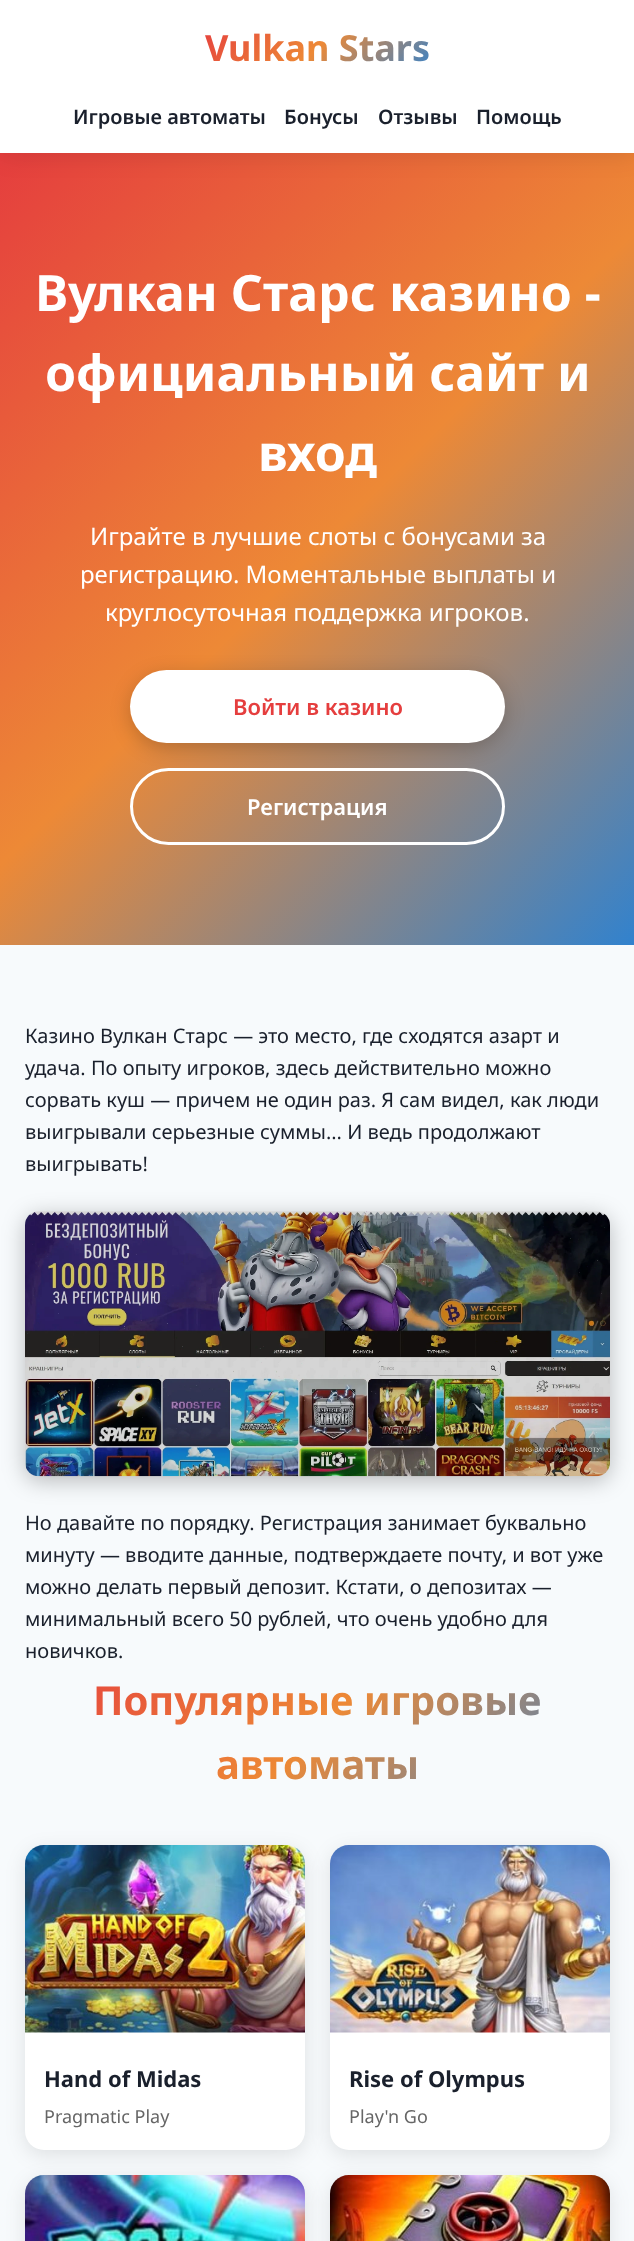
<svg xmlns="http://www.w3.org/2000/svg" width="634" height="2241">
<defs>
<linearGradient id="g1" gradientUnits="userSpaceOnUse" x1="-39" y1="192" x2="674" y2="906"><stop offset="0" stop-color="#e53e3e"/><stop offset="0.5" stop-color="#ed8936"/><stop offset="1" stop-color="#3182ce"/></linearGradient>
<clipPath id="clip1"><path d="M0 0h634v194h-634zm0 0h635v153h-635z" clip-rule="evenodd"/></clipPath>
<linearGradient id="g2" gradientUnits="userSpaceOnUse" x1="247" y1="-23" x2="388" y2="118"><stop offset="0" stop-color="#e53e3e"/><stop offset="0.5" stop-color="#ed8936"/><stop offset="1" stop-color="#3182ce"/></linearGradient>
<linearGradient id="g3" gradientUnits="userSpaceOnUse" x1="139" y1="1553" x2="496" y2="1909"><stop offset="0" stop-color="#e53e3e"/><stop offset="0.5" stop-color="#ed8936"/><stop offset="1" stop-color="#3182ce"/></linearGradient>
</defs>
<rect width="100%" height="100%" fill="#f7fafc"/>
<rect y="153" width="634" height="792" fill="url(#g1)"/>
<g clip-path="url(#clip1)">
<rect y="3" width="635" height="152" fill="#0000001a" filter="blur(12.5px)"/>
</g>
<rect width="634" height="153" fill="#fffffff2"/>
<text x="205" y="61" style="font-family:Noto Sans;font-size:36px;font-weight:bold;fill:url(#g2)">Vulkan Stars</text>
<text x="73" y="124" style="font-family:Noto Sans;font-size:20px;font-weight:600;fill:#1a202c">Игровые автоматы</text>
<text x="284" y="124" style="font-family:Noto Sans;font-size:20px;font-weight:600;fill:#1a202c">Бонусы</text>
<text x="378" y="124" style="font-family:Noto Sans;font-size:20px;font-weight:600;fill:#1a202c">Отзывы</text>
<text x="476" y="124" style="font-family:Noto Sans;font-size:20px;font-weight:600;fill:#1a202c">Помощь</text>
<text x="35" y="311" style="font-family:Noto Sans;font-size:50px;font-weight:bold;fill:#fff">Вулкан Старс казино -</text>
<text x="45" y="391" style="font-family:Noto Sans;font-size:50px;font-weight:bold;fill:#fff">официальный сайт и</text>
<text x="258" y="471" style="font-family:Noto Sans;font-size:50px;font-weight:bold;fill:#fff">вход</text>
<text x="90" y="545" style="font-family:Noto Sans;font-size:24px;fill:#fff">Играйте в лучшие слоты с бонусами за</text>
<text x="80" y="583" style="font-family:Noto Sans;font-size:24px;fill:#fff">регистрацию. Моментальные выплаты и</text>
<text x="105" y="621" style="font-family:Noto Sans;font-size:24px;fill:#fff">круглосуточная поддержка игроков.</text>
<rect x="130" y="675" width="375" height="73" rx="36.5" fill="#00000033" filter="blur(9.5px)"/>
<rect x="130" y="670" width="375" height="73" rx="36.5" fill="#fff"/>
<text x="233" y="715" style="font-family:Noto Sans;font-size:22px;font-weight:600;fill:#e53e3e">Войти в казино</text>
<rect x="131.5" y="769.5" width="372" height="74" rx="37" fill="none" stroke="#fff" stroke-width="3"/>
<text x="247" y="815" style="font-family:Noto Sans;font-size:22px;font-weight:600;fill:#fff">Регистрация</text>
<text x="25" y="1043" style="font-family:Noto Sans;font-size:20px;fill:#1a202c">Казино Вулкан Старс — это место, где сходятся азарт и</text>
<text x="25" y="1075" style="font-family:Noto Sans;font-size:20px;fill:#1a202c">удача. По опыту игроков, здесь действительно можно</text>
<text x="25" y="1107" style="font-family:Noto Sans;font-size:20px;fill:#1a202c">сорвать куш — причем не один раз. Я сам видел, как люди</text>
<text x="25" y="1139" style="font-family:Noto Sans;font-size:20px;fill:#1a202c">выигрывали серьезные суммы... И ведь продолжают</text>
<text x="25" y="1171" style="font-family:Noto Sans;font-size:20px;fill:#1a202c">выигрывать!</text>
<rect x="25" y="1216" width="585" height="265" rx="14" fill="#00000040" filter="blur(11px)"/>
<image x="25" y="1211" width="585" height="266" href="media/1.png"/>
<text x="25" y="1530" style="font-family:Noto Sans;font-size:20px;fill:#1a202c">Но давайте по порядку. Регистрация занимает буквально</text>
<text x="25" y="1562" style="font-family:Noto Sans;font-size:20px;fill:#1a202c">минуту — вводите данные, подтверждаете почту, и вот уже</text>
<text x="25" y="1594" style="font-family:Noto Sans;font-size:20px;fill:#1a202c">можно делать первый депозит. Кстати, о депозитах —</text>
<text x="25" y="1626" style="font-family:Noto Sans;font-size:20px;fill:#1a202c">минимальный всего 50 рублей, что очень удобно для</text>
<text x="25" y="1658" style="font-family:Noto Sans;font-size:20px;fill:#1a202c">новичков.</text>
<text x="93" y="1715" style="font-family:Noto Sans;font-size:40px;font-weight:bold;fill:url(#g3)">Популярные игровые</text>
<text x="216" y="1779" style="font-family:Noto Sans;font-size:40px;font-weight:bold;fill:url(#g3)">автоматы</text>
<rect x="25" y="1850" width="280" height="305" rx="19" fill="#0000001a" filter="blur(9.5px)"/>
<rect x="25" y="1845" width="280" height="305" rx="19" fill="#fff"/>
<image x="25" y="1845" width="280" height="188" href="media/2.png"/>
<text x="44" y="2087" style="font-family:Noto Sans;font-size:22px;font-weight:bold;fill:#1a202c">Hand of Midas</text>
<text x="44" y="2123" style="font-family:Noto Sans;font-size:18px;fill:#666">Pragmatic Play</text>
<rect x="330" y="1850" width="280" height="305" rx="19" fill="#0000001a" filter="blur(9.5px)"/>
<rect x="330" y="1845" width="280" height="305" rx="19" fill="#fff"/>
<image x="330" y="1845" width="280" height="188" href="media/3.png"/>
<text x="349" y="2087" style="font-family:Noto Sans;font-size:22px;font-weight:bold;fill:#1a202c">Rise of Olympus</text>
<text x="349" y="2123" style="font-family:Noto Sans;font-size:18px;fill:#666">Play'n Go</text>
<rect x="25" y="2180" width="280" height="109" rx="19" fill="#0000001a" filter="blur(9.5px)"/>
<image x="25" y="2175" width="280" height="66" href="media/4.png"/>
<rect x="330" y="2180" width="280" height="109" rx="19" fill="#0000001a" filter="blur(9.5px)"/>
<image x="330" y="2175" width="280" height="66" href="media/5.png"/>
</svg>
